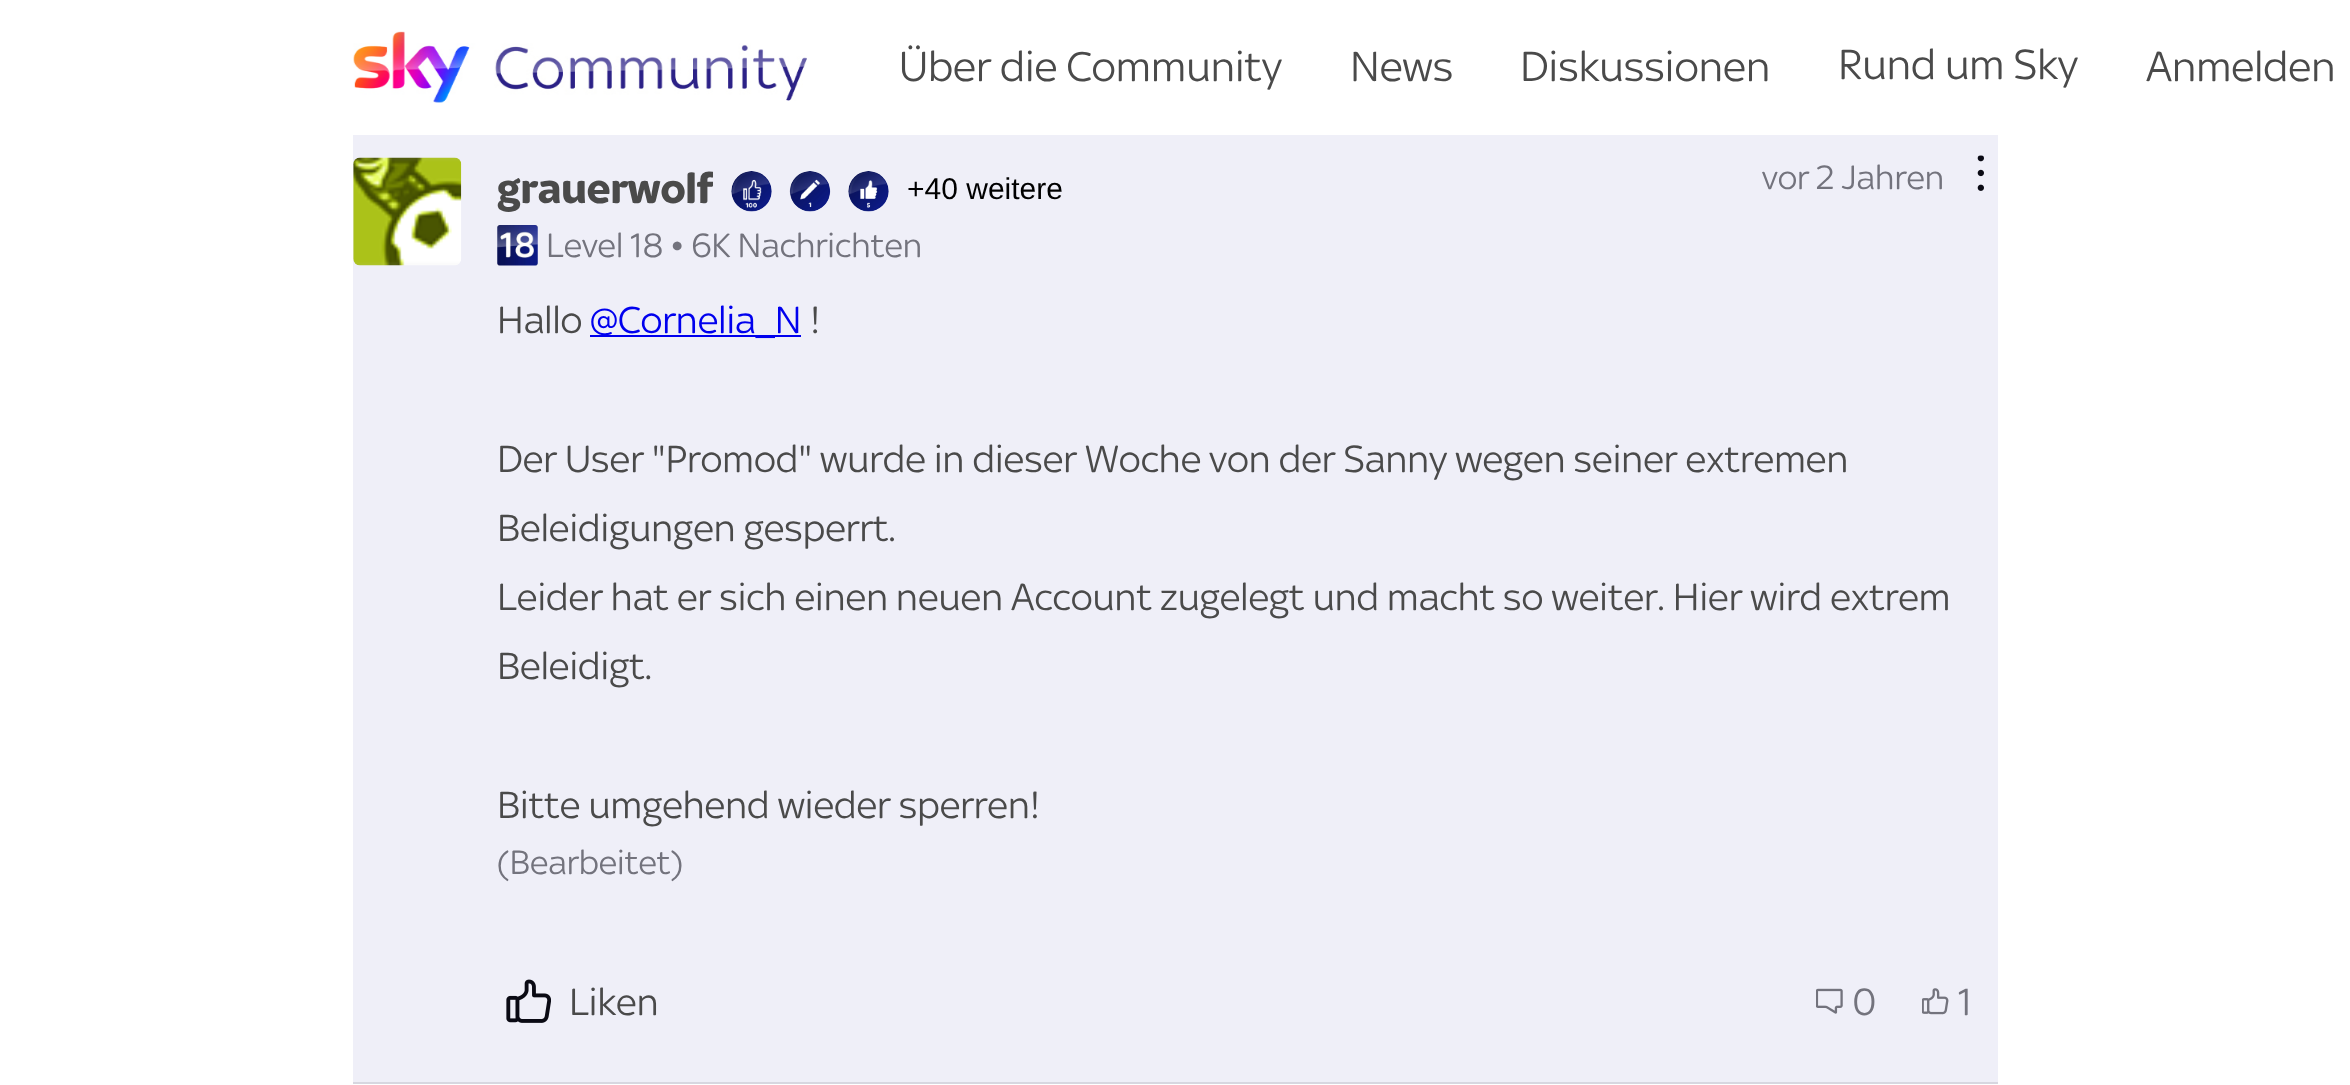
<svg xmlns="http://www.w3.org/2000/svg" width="2350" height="1085">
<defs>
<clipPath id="clip1"><rect x="497" y="155" width="216" height="68"/></clipPath>
</defs>
<rect width="100%" height="100%" fill="#fff"/>
<image x="353" y="31" width="454" height="72" href="media/1.png"/>
<text x="899" y="81" style="font-family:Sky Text;font-size:45px;fill:#4a4a4a">Über die Community</text>
<text x="1350" y="81" style="font-family:Sky Text;font-size:45px;fill:#4a4a4a">News</text>
<text x="1520" y="81" style="font-family:Sky Text;font-size:45px;fill:#4a4a4a">Diskussionen</text>
<text x="1838" y="79" style="font-family:Sky Text;font-size:45px;fill:#4a4a4a">Rund um Sky</text>
<text x="2146" y="81" style="font-family:Sky Text;font-size:45px;fill:#4a4a4a">Anmelden</text>
<rect x="353" y="1082" width="1645" height="2" fill="#d7d7e0"/>
<rect x="353" y="135" width="1645" height="947" fill="#efeff8"/>
<image x="353" y="157" width="109" height="109" href="media/2.png"/>
<g clip-path="url(#clip1)">
<text x="497" y="203" style="font-family:Sky Text;font-size:45px;font-weight:bold;fill:#4a4a4a">grauerwolf</text>
</g>
<image x="731" y="171" width="41" height="41" href="media/3.png"/>
<image x="789" y="171" width="42" height="41" href="media/4.png"/>
<image x="848" y="171" width="41" height="41" href="media/5.png"/>
<text x="907" y="199" style="font-family:Liberation Sans;font-size:30px;fill:#000">+40 weitere</text>
<image x="497" y="225" width="41" height="41" href="media/6.png"/>
<text x="546" y="257" style="font-family:Sky Text;font-size:36px;fill:#73737d">Level 18 • 6K Nachrichten</text>
<text x="1762" y="189" style="font-family:Sky Text;font-size:36px;fill:#73737d">vor 2 Jahren</text>
<image x="1977" y="155" width="7" height="36" href="media/7.png"/>
<text x="497" y="333" style="font-family:Sky Text;font-size:40.5px;fill:#4a4a4a">Hallo</text>
<rect x="590" y="335" width="211" height="2" fill="#00e"/>
<text x="590" y="333" style="font-family:Sky Text;font-size:40.5px;fill:#00e">@Cornelia_N</text>
<text x="810" y="333" style="font-family:Sky Text;font-size:40.5px;fill:#4a4a4a">!</text>
<text x="497" y="472" style="font-family:Sky Text;font-size:40.5px;fill:#4a4a4a">Der User "Promod" wurde in dieser Woche von der Sanny wegen seiner extremen</text>
<text x="497" y="541" style="font-family:Sky Text;font-size:40.5px;fill:#4a4a4a">Beleidigungen gesperrt.</text>
<text x="497" y="610" style="font-family:Sky Text;font-size:40.5px;fill:#4a4a4a">Leider hat er sich einen neuen Account zugelegt und macht so weiter. Hier wird extrem</text>
<text x="497" y="679" style="font-family:Sky Text;font-size:40.5px;fill:#4a4a4a">Beleidigt.</text>
<text x="497" y="818" style="font-family:Sky Text;font-size:40.5px;fill:#4a4a4a">Bitte umgehend wieder sperren!</text>
<text x="497" y="874" style="font-family:Sky Text;font-size:36px;fill:#73737d">(Bearbeitet)</text>
<image x="506" y="979" width="45" height="44" href="media/8.png"/>
<text x="569" y="1015" style="font-family:Sky Text;font-size:40.5px;fill:#4a4a4a">Liken</text>
<image x="1816" y="988" width="27" height="26" href="media/9.png"/>
<text x="1852" y="1015" style="font-family:Sky Text;font-size:40.5px;fill:#73737d">0</text>
<image x="1922" y="988" width="27" height="27" href="media/10.png"/>
<text x="1958" y="1015" style="font-family:Sky Text;font-size:40.5px;fill:#73737d">1</text>
</svg>
